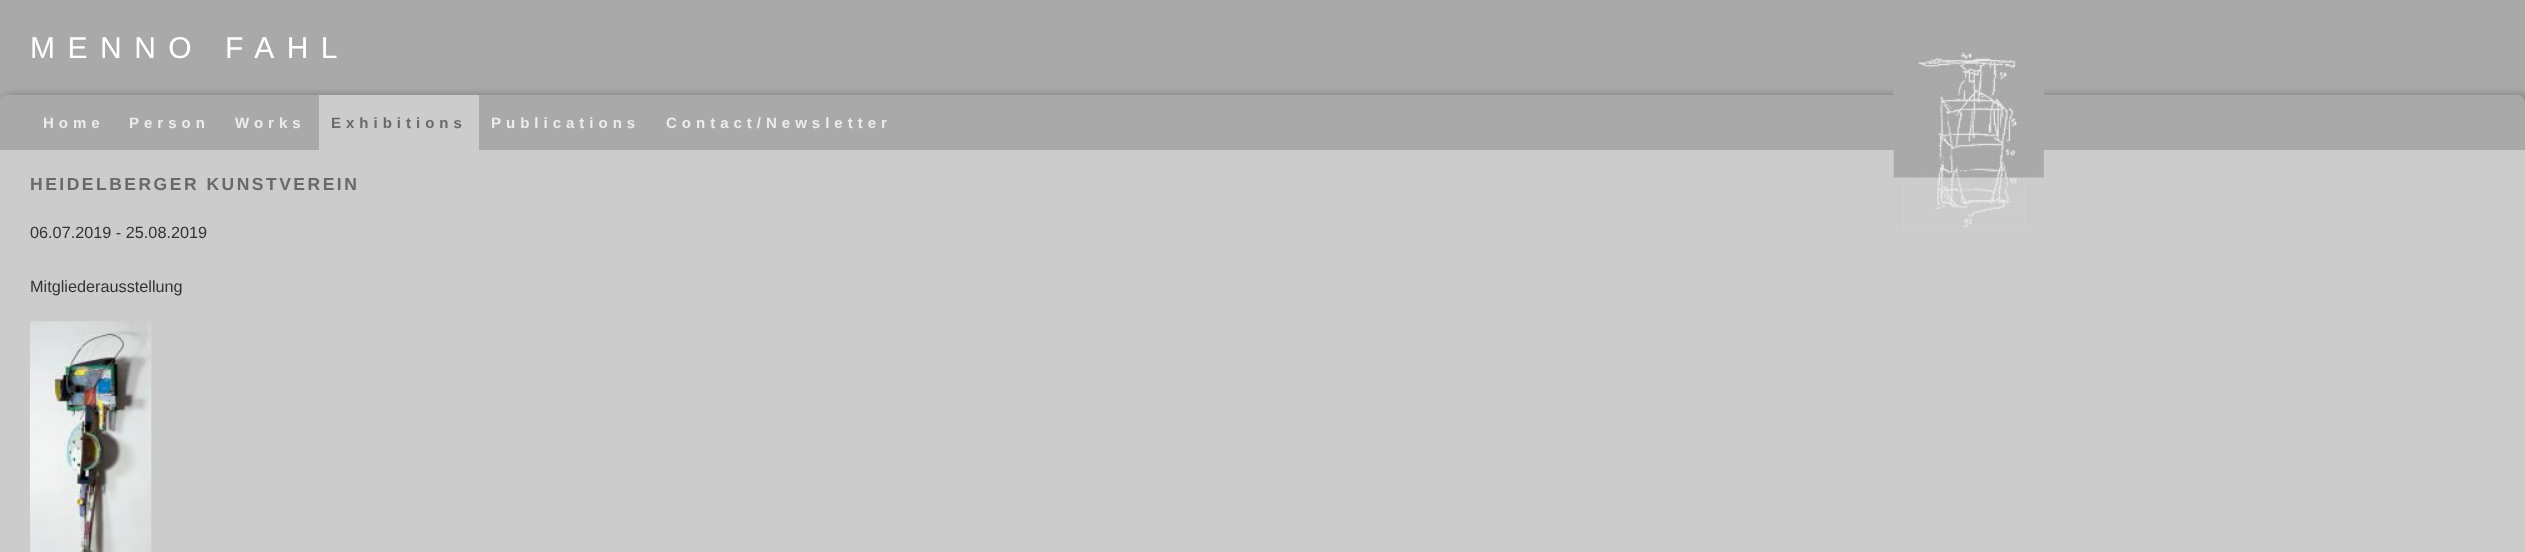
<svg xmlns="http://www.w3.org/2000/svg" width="2525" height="552">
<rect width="100%" height="100%" fill="#a9a9a9"/>
<text x="30" y="58" style="font-family:Liberation Sans;font-size:30px;letter-spacing:12.5px;fill:#fff">MENNO FAHL</text>
<rect x="3" y="93" width="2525" height="55" rx="8" fill="#4a48484d" filter="blur(3px)"/>
<path d="M8 95h2509c4.5 0 8 3.5 8 8v47h-2525v-47c0-4.5 3.5-8 8-8z" fill="#a9a9a9"/>
<rect y="150" width="2525" height="402" fill="#ccc"/>
<image x="1893" y="50" width="151" height="180" href="media/1.png"/>
<text x="43" y="128" style="font-family:Liberation Sans;font-size:15px;font-weight:bold;letter-spacing:5px;fill:#ececec">Home</text>
<text x="129" y="128" style="font-family:Liberation Sans;font-size:15px;font-weight:bold;letter-spacing:5px;fill:#ececec">Person</text>
<text x="235" y="128" style="font-family:Liberation Sans;font-size:15px;font-weight:bold;letter-spacing:5px;fill:#ececec">Works</text>
<rect x="319" y="95" width="160" height="55" fill="#ccc"/>
<text x="331" y="128" style="font-family:Liberation Sans;font-size:15px;font-weight:bold;letter-spacing:5px;fill:#696969">Exhibitions</text>
<text x="491" y="128" style="font-family:Liberation Sans;font-size:15px;font-weight:bold;letter-spacing:5px;fill:#ececec">Publications</text>
<text x="666" y="128" style="font-family:Liberation Sans;font-size:15px;font-weight:bold;letter-spacing:5px;fill:#ececec">Contact/Newsletter</text>
<text x="30" y="190" style="font-family:Liberation Sans;font-size:17.5px;font-weight:bold;letter-spacing:2.5px;fill:#696969">HEIDELBERGER KUNSTVEREIN</text>
<text x="30" y="238" style="font-family:Liberation Sans;font-size:16.25px;fill:#333">06.07.2019 - 25.08.2019</text>
<text x="30" y="292" style="font-family:Liberation Sans;font-size:16.25px;fill:#333">Mitgliederausstellung</text>
<image x="30" y="321" width="122" height="231" href="media/2.png"/>
</svg>
